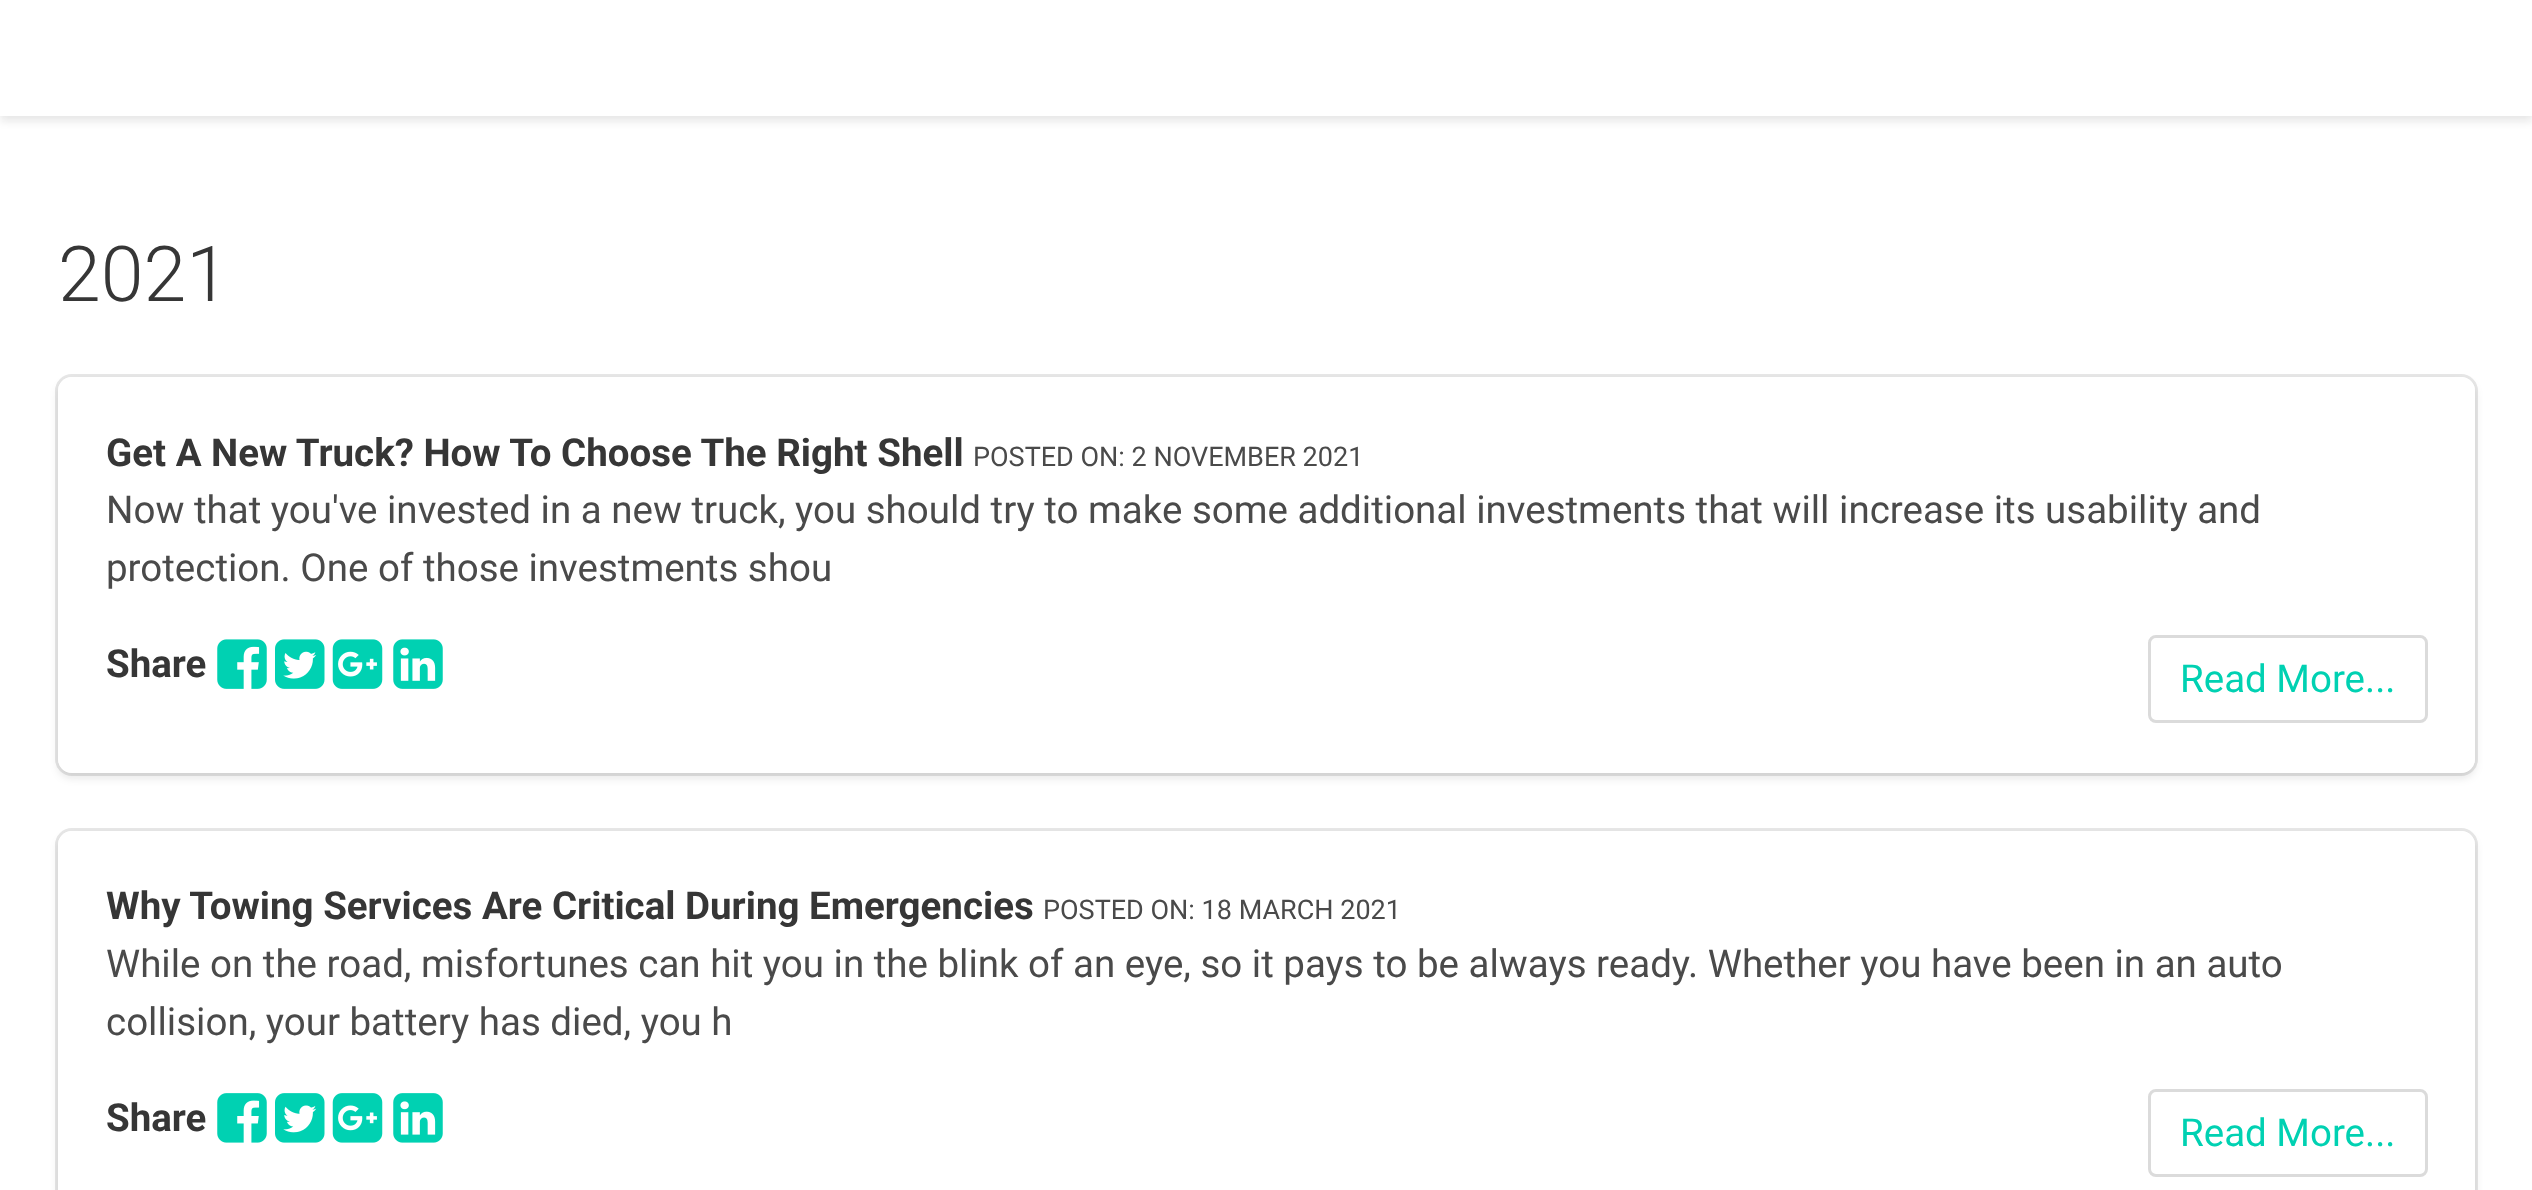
<svg xmlns="http://www.w3.org/2000/svg" width="2532" height="1190">
<rect width="100%" height="100%" fill="#fff"/>
<rect y="-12" width="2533" height="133" fill="#0a0a0a1a" filter="blur(4px)"/>
<rect width="2532" height="116" fill="#fff"/>
<text x="58" y="301" style="font-family:Roboto;font-size:77px;font-weight:300;fill:#363636">2021</text>
<rect x="56.5" y="375.5" width="2420" height="399" rx="15.5" fill="none" stroke="#e7e7e7" stroke-width="3"/>
<rect x="58" y="382" width="2417" height="396" rx="14" fill="#0a0a0a1a" filter="blur(4px)"/>
<rect x="58" y="377" width="2417" height="396" rx="14" fill="#fff"/>
<text x="106" y="466" style="font-family:Roboto;font-size:38.5px;font-weight:bold;fill:#363636">Get A New Truck? How To Choose The Right Shell</text>
<text x="973" y="466" style="font-family:Roboto;font-size:27px;fill:#4a4a4a">POSTED ON: 2 NOVEMBER 2021</text>
<text x="106" y="523" style="font-family:Roboto;font-size:38.5px;fill:#4a4a4a">Now that you've invested in a new truck, you should try to make some additional investments that will increase its usability and</text>
<text x="106" y="581" style="font-family:Roboto;font-size:38.5px;fill:#4a4a4a">protection. One of those investments shou</text>
<rect x="2149.5" y="636.5" width="277" height="85" rx="6.5" fill="none" stroke="#dbdbdb" stroke-width="3"/>
<text x="2180" y="692" style="font-family:Roboto;font-size:38.5px;fill:#00d1b2">Read More...</text>
<text x="106" y="677" style="font-family:Roboto;font-size:38.5px;font-weight:bold;fill:#363636">Share</text>
<image x="217" y="639" width="50" height="50" href="media/1.png"/>
<image x="275" y="639" width="50" height="50" href="media/2.png"/>
<image x="332" y="639" width="51" height="50" href="media/3.png"/>
<image x="393" y="639" width="50" height="50" href="media/4.png"/>
<rect x="56.5" y="829.5" width="2420" height="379" rx="15.5" fill="none" stroke="#e7e7e7" stroke-width="3"/>
<rect x="58" y="836" width="2417" height="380" rx="14" fill="#0a0a0a1a" filter="blur(4px)"/>
<rect x="58" y="831" width="2417" height="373" rx="14" fill="#fff"/>
<text x="106" y="919" style="font-family:Roboto;font-size:38.5px;font-weight:bold;fill:#363636">Why Towing Services Are Critical During Emergencies</text>
<text x="1043" y="919" style="font-family:Roboto;font-size:27px;fill:#4a4a4a">POSTED ON: 18 MARCH 2021</text>
<text x="106" y="977" style="font-family:Roboto;font-size:38.5px;fill:#4a4a4a">While on the road, misfortunes can hit you in the blink of an eye, so it pays to be always ready. Whether you have been in an auto</text>
<text x="106" y="1035" style="font-family:Roboto;font-size:38.5px;fill:#4a4a4a">collision, your battery has died, you h</text>
<rect x="2149.5" y="1090.5" width="277" height="85" rx="6.5" fill="none" stroke="#dbdbdb" stroke-width="3"/>
<text x="2180" y="1146" style="font-family:Roboto;font-size:38.5px;fill:#00d1b2">Read More...</text>
<text x="106" y="1131" style="font-family:Roboto;font-size:38.5px;font-weight:bold;fill:#363636">Share</text>
<image x="217" y="1093" width="50" height="50" href="media/5.png"/>
<image x="275" y="1093" width="50" height="50" href="media/6.png"/>
<image x="332" y="1093" width="51" height="50" href="media/7.png"/>
<image x="393" y="1093" width="50" height="50" href="media/8.png"/>
</svg>
